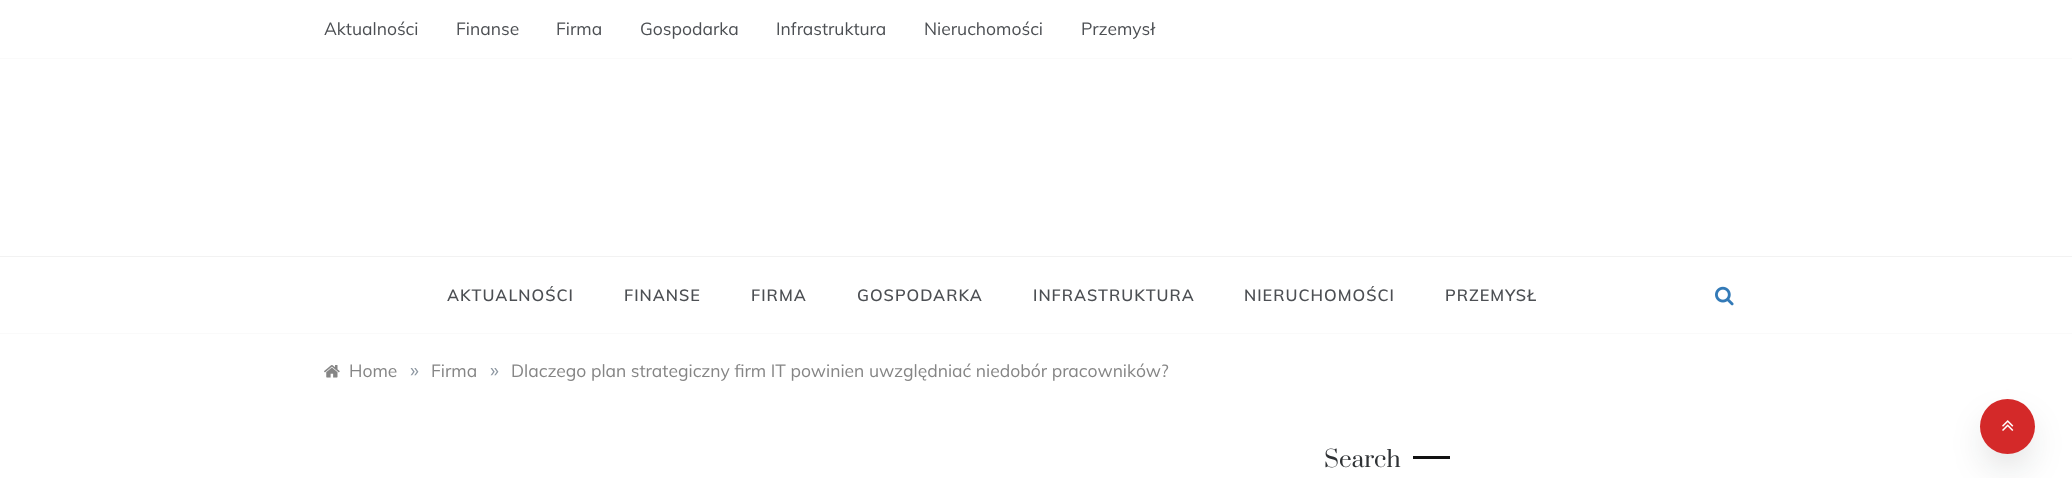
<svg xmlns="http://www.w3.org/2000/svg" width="2072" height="478">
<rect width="100%" height="100%" fill="#fff"/>
<rect y="58" width="2072" height="1" fill="#fafafa"/>
<text x="324" y="35" style="font-family:Muli;font-size:17.5px;fill:#4c4f53">Aktualności</text>
<text x="456" y="35" style="font-family:Muli;font-size:17.5px;fill:#4c4f53">Finanse</text>
<text x="556" y="35" style="font-family:Muli;font-size:17.5px;fill:#4c4f53">Firma</text>
<text x="640" y="35" style="font-family:Muli;font-size:17.5px;fill:#4c4f53">Gospodarka</text>
<text x="776" y="35" style="font-family:Muli;font-size:17.5px;fill:#4c4f53">Infrastruktura</text>
<text x="924" y="35" style="font-family:Muli;font-size:17.5px;fill:#4c4f53">Nieruchomości</text>
<text x="1081" y="35" style="font-family:Muli;font-size:17.5px;fill:#4c4f53">Przemysł</text>
<rect y="333" width="2072" height="1" fill="#fafafa"/>
<rect y="256" width="2072" height="1" fill="#f2f2f2"/>
<text x="447" y="301" style="font-family:Muli;font-size:16.25px;font-weight:600;letter-spacing:1px;fill:#4c4f53">AKTUALNOŚCI</text>
<text x="624" y="301" style="font-family:Muli;font-size:16.25px;font-weight:600;letter-spacing:1px;fill:#4c4f53">FINANSE</text>
<text x="751" y="301" style="font-family:Muli;font-size:16.25px;font-weight:600;letter-spacing:1px;fill:#4c4f53">FIRMA</text>
<text x="857" y="301" style="font-family:Muli;font-size:16.25px;font-weight:600;letter-spacing:1px;fill:#4c4f53">GOSPODARKA</text>
<text x="1033" y="301" style="font-family:Muli;font-size:16.25px;font-weight:600;letter-spacing:1px;fill:#4c4f53">INFRASTRUKTURA</text>
<text x="1244" y="301" style="font-family:Muli;font-size:16.25px;font-weight:600;letter-spacing:1px;fill:#4c4f53">NIERUCHOMOŚCI</text>
<text x="1445" y="301" style="font-family:Muli;font-size:16.25px;font-weight:600;letter-spacing:1px;fill:#4c4f53">PRZEMYSŁ</text>
<image x="1715" y="286" width="19" height="20" href="media/1.png"/>
<image x="324" y="365" width="16" height="13" href="media/2.png"/>
<text x="349" y="377" style="font-family:Muli;font-size:17.5px;fill:#858585">Home</text>
<text x="410" y="377" style="font-family:Muli;font-size:20px;fill:#8d97a1">»</text>
<text x="431" y="377" style="font-family:Muli;font-size:17.5px;fill:#858585">Firma</text>
<text x="490" y="377" style="font-family:Muli;font-size:20px;fill:#8d97a1">»</text>
<text x="511" y="377" style="font-family:Muli;font-size:17.5px;fill:#858585">Dlaczego plan strategiczny firm IT powinien uwzględniać niedobór pracowników?</text>
<text x="1324" y="467" style="font-family:Prata;font-size:22.5px;fill:#2f3235">Search</text>
<rect x="1413" y="456" width="37" height="3" fill="#111"/>
<rect x="1985" y="421" width="45" height="45" rx="22.5" fill="#0e111426" filter="blur(17.5px)"/>
<circle cx="2007.5" cy="426.5" r="27.5" fill="#d42929"/>
<image x="2002" y="420" width="12" height="11" href="media/3.png"/>
</svg>
